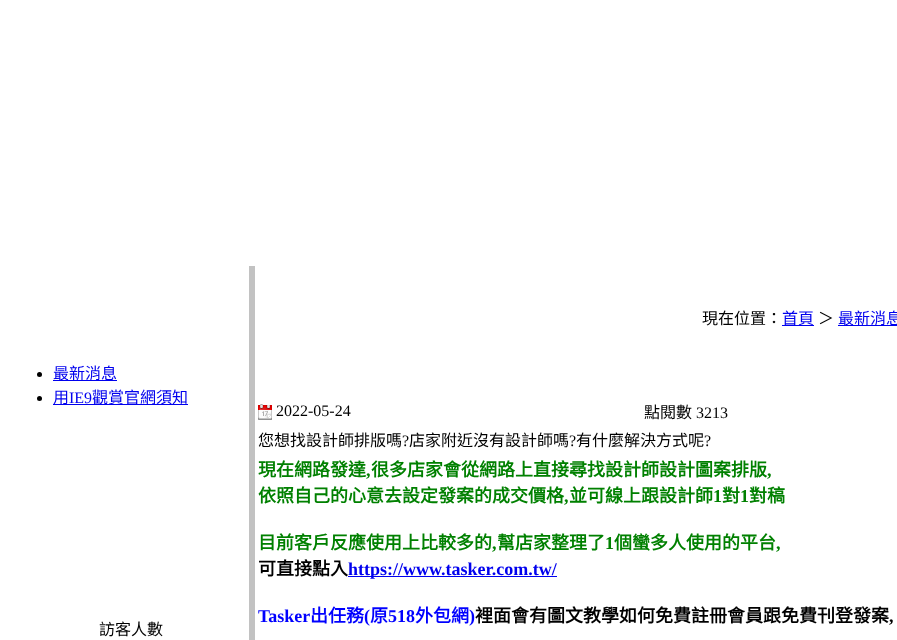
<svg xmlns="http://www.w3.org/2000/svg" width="897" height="640">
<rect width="100%" height="100%" fill="#fff"/>
<circle cx="39.5" cy="374.5" r="2.5" fill="#000"/>
<rect x="53" y="380" width="64" height="1" fill="#00e"/>
<text x="53" y="379" style="font-family:Noto Sans CJK TC;font-size:16px;fill:#00e">最新消息</text>
<circle cx="39.5" cy="398.5" r="2.5" fill="#000"/>
<rect x="53" y="404" width="135" height="1" fill="#00e"/>
<text x="53" y="403" style="font-family:Noto Sans CJK TC;font-size:16px;fill:#00e">用</text>
<text x="69" y="403" style="font-family:Liberation Serif;font-size:16px;fill:#00e">IE9</text>
<text x="92" y="403" style="font-family:Noto Sans CJK TC;font-size:16px;fill:#00e">觀賞官網須知</text>
<text x="99" y="635" style="font-family:Noto Sans CJK TC;font-size:16px;fill:#000">訪客人數</text>
<rect x="249" y="266" width="6" height="374" fill="#c2c2c2"/>
<text x="702" y="324" style="font-family:Noto Sans CJK TC;font-size:16px;fill:#000">現在位置：</text>
<rect x="782" y="325" width="32" height="1" fill="#00e"/>
<text x="782" y="324" style="font-family:Noto Sans CJK TC;font-size:16px;fill:#00e">首頁</text>
<text x="818" y="324" style="font-family:Noto Sans CJK TC;font-size:16px;fill:#000">＞</text>
<rect x="838" y="325" width="59" height="1" fill="#00e"/>
<text x="838" y="324" style="font-family:Noto Sans CJK TC;font-size:16px;fill:#00e">最新消息</text>
<image x="258" y="404" width="14" height="16" href="media/1.png"/>
<text x="276" y="416" style="font-family:Liberation Serif;font-size:16px;fill:#000">2022-05-24</text>
<text x="644" y="418" style="font-family:Noto Sans CJK TC;font-size:16px;fill:#000">點閱數</text>
<text x="696" y="418" style="font-family:Liberation Serif;font-size:16px;fill:#000">3213</text>
<text x="258" y="446" style="font-family:Noto Sans CJK TC;font-size:16px;fill:#000">您想找設計師排版嗎</text>
<text x="402" y="446" style="font-family:Liberation Serif;font-size:16px;fill:#000">?</text>
<text x="409" y="446" style="font-family:Noto Sans CJK TC;font-size:16px;fill:#000">店家附近沒有設計師嗎</text>
<text x="569" y="446" style="font-family:Liberation Serif;font-size:16px;fill:#000">?</text>
<text x="576" y="446" style="font-family:Noto Sans CJK TC;font-size:16px;fill:#000">有什麼解決方式呢</text>
<text x="704" y="446" style="font-family:Liberation Serif;font-size:16px;fill:#000">?</text>
<text x="258" y="476" style="font-family:Noto Sans CJK TC;font-size:18px;font-weight:bold;fill:#008000">現在網路發達</text>
<text x="366" y="476" style="font-family:Liberation Serif;font-size:18px;font-weight:bold;fill:#008000">,</text>
<text x="371" y="476" style="font-family:Noto Sans CJK TC;font-size:18px;font-weight:bold;fill:#008000">很多店家會從網路上直接尋找設計師設計圖案排版</text>
<text x="767" y="476" style="font-family:Liberation Serif;font-size:18px;font-weight:bold;fill:#008000">,</text>
<text x="258" y="502" style="font-family:Noto Sans CJK TC;font-size:18px;font-weight:bold;fill:#008000">依照自己的心意去設定發案的成交價格</text>
<text x="564" y="502" style="font-family:Liberation Serif;font-size:18px;font-weight:bold;fill:#008000">,</text>
<text x="569" y="502" style="font-family:Noto Sans CJK TC;font-size:18px;font-weight:bold;fill:#008000">並可線上跟設計師</text>
<text x="713" y="502" style="font-family:Liberation Serif;font-size:18px;font-weight:bold;fill:#008000">1</text>
<text x="722" y="502" style="font-family:Noto Sans CJK TC;font-size:18px;font-weight:bold;fill:#008000">對</text>
<text x="740" y="502" style="font-family:Liberation Serif;font-size:18px;font-weight:bold;fill:#008000">1</text>
<text x="749" y="502" style="font-family:Noto Sans CJK TC;font-size:18px;font-weight:bold;fill:#008000">對稿</text>
<text x="258" y="549" style="font-family:Noto Sans CJK TC;font-size:18px;font-weight:bold;fill:#008000">目前客戶反應使用上比較多的</text>
<text x="492" y="549" style="font-family:Liberation Serif;font-size:18px;font-weight:bold;fill:#008000">,</text>
<text x="497" y="549" style="font-family:Noto Sans CJK TC;font-size:18px;font-weight:bold;fill:#008000">幫店家整理了</text>
<text x="605" y="549" style="font-family:Liberation Serif;font-size:18px;font-weight:bold;fill:#008000">1</text>
<text x="614" y="549" style="font-family:Noto Sans CJK TC;font-size:18px;font-weight:bold;fill:#008000">個蠻多人使用的平台</text>
<text x="776" y="549" style="font-family:Liberation Serif;font-size:18px;font-weight:bold;fill:#008000">,</text>
<text x="258" y="575" style="font-family:Noto Sans CJK TC;font-size:18px;font-weight:bold;fill:#000">可直接點入</text>
<rect x="348" y="576" width="209" height="1" fill="#00e"/>
<text x="348" y="575" style="font-family:Liberation Serif;font-size:18px;font-weight:bold;fill:#00e">https://www.tasker.com.tw/</text>
<text x="258" y="622" style="font-family:Liberation Serif;font-size:18px;font-weight:bold;fill:#00f">Tasker</text>
<text x="310" y="622" style="font-family:Noto Sans CJK TC;font-size:18px;font-weight:bold;fill:#00f">出任務</text>
<text x="364" y="622" style="font-family:Liberation Serif;font-size:18px;font-weight:bold;fill:#00f">(</text>
<text x="370" y="622" style="font-family:Noto Sans CJK TC;font-size:18px;font-weight:bold;fill:#00f">原</text>
<text x="388" y="622" style="font-family:Liberation Serif;font-size:18px;font-weight:bold;fill:#00f">518</text>
<text x="415" y="622" style="font-family:Noto Sans CJK TC;font-size:18px;font-weight:bold;fill:#00f">外包網</text>
<text x="469" y="622" style="font-family:Liberation Serif;font-size:18px;font-weight:bold;fill:#00f">)</text>
<text x="475" y="622" style="font-family:Noto Sans CJK TC;font-size:18px;font-weight:bold;fill:#000">裡面會有圖文教學如何免費註冊會員跟免費刊登發案</text>
<text x="889" y="622" style="font-family:Liberation Serif;font-size:18px;font-weight:bold;fill:#000">,</text>
</svg>
